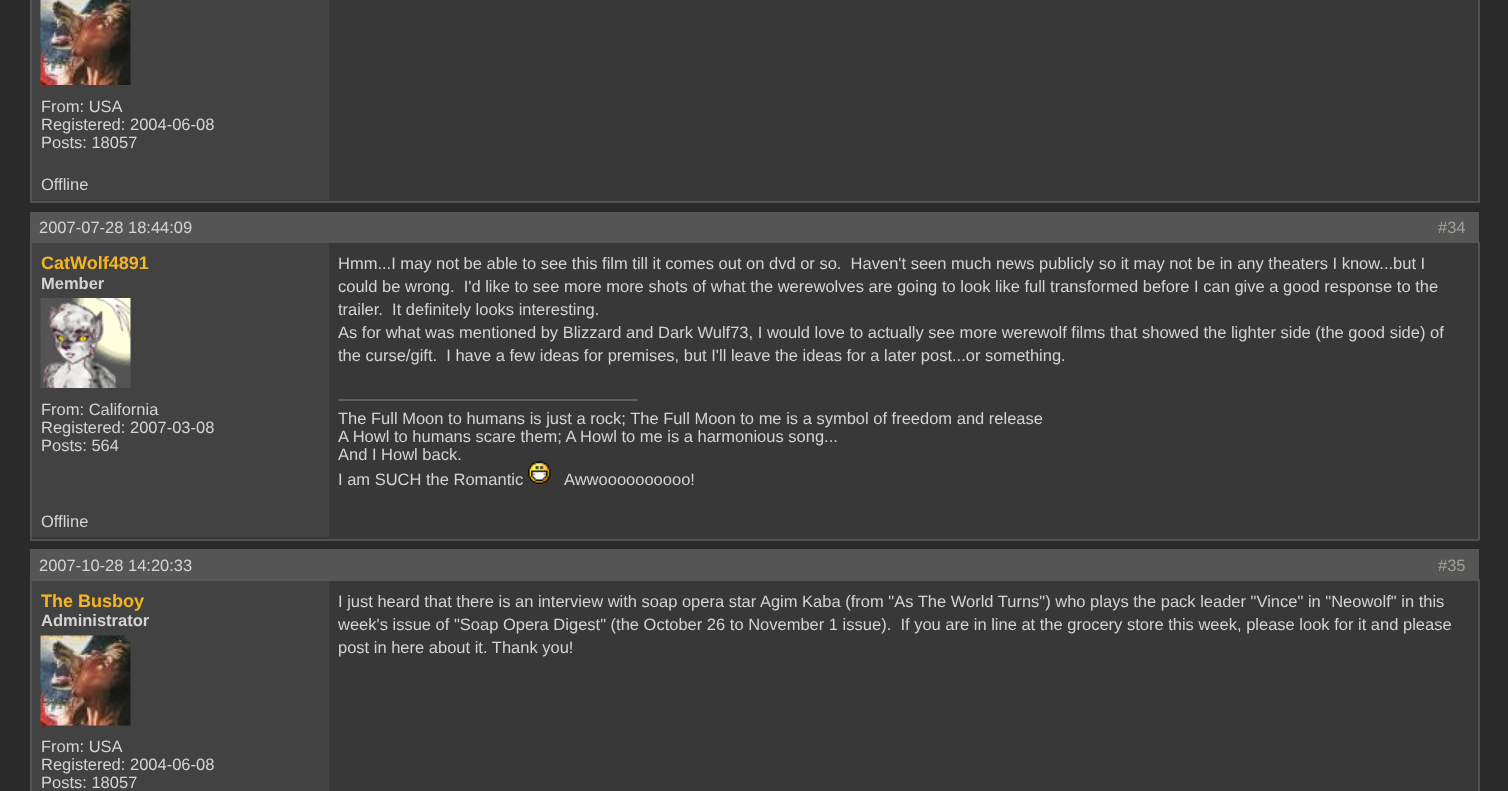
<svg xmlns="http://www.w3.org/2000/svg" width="1508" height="791">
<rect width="100%" height="100%" fill="#2a2a2a"/>
<rect x="32" width="1446" height="201" fill="#383838"/>
<rect x="1478" width="2" height="203" fill="#525252"/>
<rect x="30" y="201" width="1449" height="2" fill="#525252"/>
<rect x="30" width="2" height="203" fill="#525252"/>
<rect x="32" width="297" height="200" fill="#424242"/>
<image x="40" y="0" width="91" height="85" href="media/1.png"/>
<text x="41" y="112" style="font-family:Liberation Sans;font-size:16.5px;fill:#d4d4d4">From: USA</text>
<text x="41" y="130" style="font-family:Liberation Sans;font-size:16.5px;fill:#d4d4d4">Registered: 2004-06-08</text>
<text x="41" y="148" style="font-family:Liberation Sans;font-size:16.5px;fill:#d4d4d4">Posts: 18057</text>
<text x="41" y="190" style="font-family:Liberation Sans;font-size:16.5px;fill:#d4d4d4">Offline</text>
<rect x="32" y="537" width="1446" height="2" fill="#383838"/>
<rect x="30" y="212" width="1449" height="31" fill="#565656"/>
<text x="39" y="233" style="font-family:Liberation Sans;font-size:16.5px;fill:#d4d4d4">2007-07-28 18:44:09</text>
<text x="1438" y="233" style="font-family:Liberation Sans;font-size:16.5px;fill:#a19e96">#34</text>
<rect x="1478" y="242" width="2" height="298" fill="#525252"/>
<rect x="30" y="539" width="1449" height="2" fill="#525252"/>
<rect x="30" y="242" width="2" height="298" fill="#525252"/>
<rect x="32" y="243" width="297" height="294" fill="#424242"/>
<text x="41" y="269" style="font-family:Liberation Sans;font-size:18px;font-weight:bold;fill:#f6b620">CatWolf4891</text>
<text x="41" y="289" style="font-family:Liberation Sans;font-size:16.5px;font-weight:bold;fill:#d4d4d4">Member</text>
<image x="40" y="298" width="91" height="90" href="media/2.png"/>
<text x="41" y="415" style="font-family:Liberation Sans;font-size:16.5px;fill:#d4d4d4">From: California</text>
<text x="41" y="433" style="font-family:Liberation Sans;font-size:16.5px;fill:#d4d4d4">Registered: 2007-03-08</text>
<text x="41" y="451" style="font-family:Liberation Sans;font-size:16.5px;fill:#d4d4d4">Posts: 564</text>
<rect x="329" y="243" width="1149" height="294" fill="#383838"/>
<text x="338" y="269" style="font-family:Liberation Sans;font-size:16.5px;fill:#d4d4d4" xml:space="preserve">Hmm...I may not be able to see this film till it comes out on dvd or so.  Haven't seen much news publicly so it may not be in any theaters I know...but I</text>
<text x="338" y="292" style="font-family:Liberation Sans;font-size:16.5px;fill:#d4d4d4" xml:space="preserve">could be wrong.  I'd like to see more more shots of what the werewolves are going to look like full transformed before I can give a good response to the</text>
<text x="338" y="315" style="font-family:Liberation Sans;font-size:16.5px;fill:#d4d4d4" xml:space="preserve">trailer.  It definitely looks interesting.</text>
<text x="338" y="338" style="font-family:Liberation Sans;font-size:16.5px;fill:#d4d4d4">As for what was mentioned by Blizzard and Dark Wulf73, I would love to actually see more werewolf films that showed the lighter side (the good side) of</text>
<text x="338" y="361" style="font-family:Liberation Sans;font-size:16.5px;fill:#d4d4d4" xml:space="preserve">the curse/gift.  I have a few ideas for premises, but I'll leave the ideas for a later post...or something.</text>
<rect x="338" y="399" width="300" height="2" fill="#606060"/>
<text x="338" y="424" style="font-family:Liberation Sans;font-size:16.5px;fill:#d4d4d4">The Full Moon to humans is just a rock; The Full Moon to me is a symbol of freedom and release</text>
<text x="338" y="442" style="font-family:Liberation Sans;font-size:16.5px;fill:#d4d4d4">A Howl to humans scare them; A Howl to me is a harmonious song...</text>
<text x="338" y="460" style="font-family:Liberation Sans;font-size:16.5px;fill:#d4d4d4">And I Howl back.</text>
<text x="338" y="485" style="font-family:Liberation Sans;font-size:16.5px;fill:#d4d4d4">I am SUCH the Romantic</text>
<image x="528" y="461" width="23" height="23" href="media/3.png"/>
<text x="564" y="485" style="font-family:Liberation Sans;font-size:16.5px;fill:#d4d4d4">Awwoooooooooo!</text>
<text x="41" y="527" style="font-family:Liberation Sans;font-size:16.5px;fill:#d4d4d4">Offline</text>
<rect x="329" y="581" width="1149" height="210" fill="#383838"/>
<rect x="30" y="549" width="1449" height="32" fill="#565656"/>
<text x="39" y="571" style="font-family:Liberation Sans;font-size:16.5px;fill:#d4d4d4">2007-10-28 14:20:33</text>
<text x="1438" y="571" style="font-family:Liberation Sans;font-size:16.5px;fill:#a19e96">#35</text>
<rect x="1478" y="579" width="2" height="212" fill="#525252"/>
<rect x="30" y="579" width="2" height="212" fill="#525252"/>
<rect x="32" y="581" width="297" height="210" fill="#424242"/>
<text x="41" y="607" style="font-family:Liberation Sans;font-size:18px;font-weight:bold;fill:#f6b620">The Busboy</text>
<text x="41" y="626" style="font-family:Liberation Sans;font-size:16.5px;font-weight:bold;fill:#d4d4d4">Administrator</text>
<image x="40" y="635" width="91" height="91" href="media/4.png"/>
<text x="41" y="752" style="font-family:Liberation Sans;font-size:16.5px;fill:#d4d4d4">From: USA</text>
<text x="41" y="770" style="font-family:Liberation Sans;font-size:16.5px;fill:#d4d4d4">Registered: 2004-06-08</text>
<text x="41" y="788" style="font-family:Liberation Sans;font-size:16.5px;fill:#d4d4d4">Posts: 18057</text>
<text x="338" y="607" style="font-family:Liberation Sans;font-size:16.5px;fill:#d4d4d4">I just heard that there is an interview with soap opera star Agim Kaba (from "As The World Turns") who plays the pack leader "Vince" in "Neowolf" in this</text>
<text x="338" y="630" style="font-family:Liberation Sans;font-size:16.5px;fill:#d4d4d4" xml:space="preserve">week's issue of "Soap Opera Digest" (the October 26 to November 1 issue).  If you are in line at the grocery store this week, please look for it and please</text>
<text x="338" y="653" style="font-family:Liberation Sans;font-size:16.5px;fill:#d4d4d4">post in here about it. Thank you!</text>
</svg>
